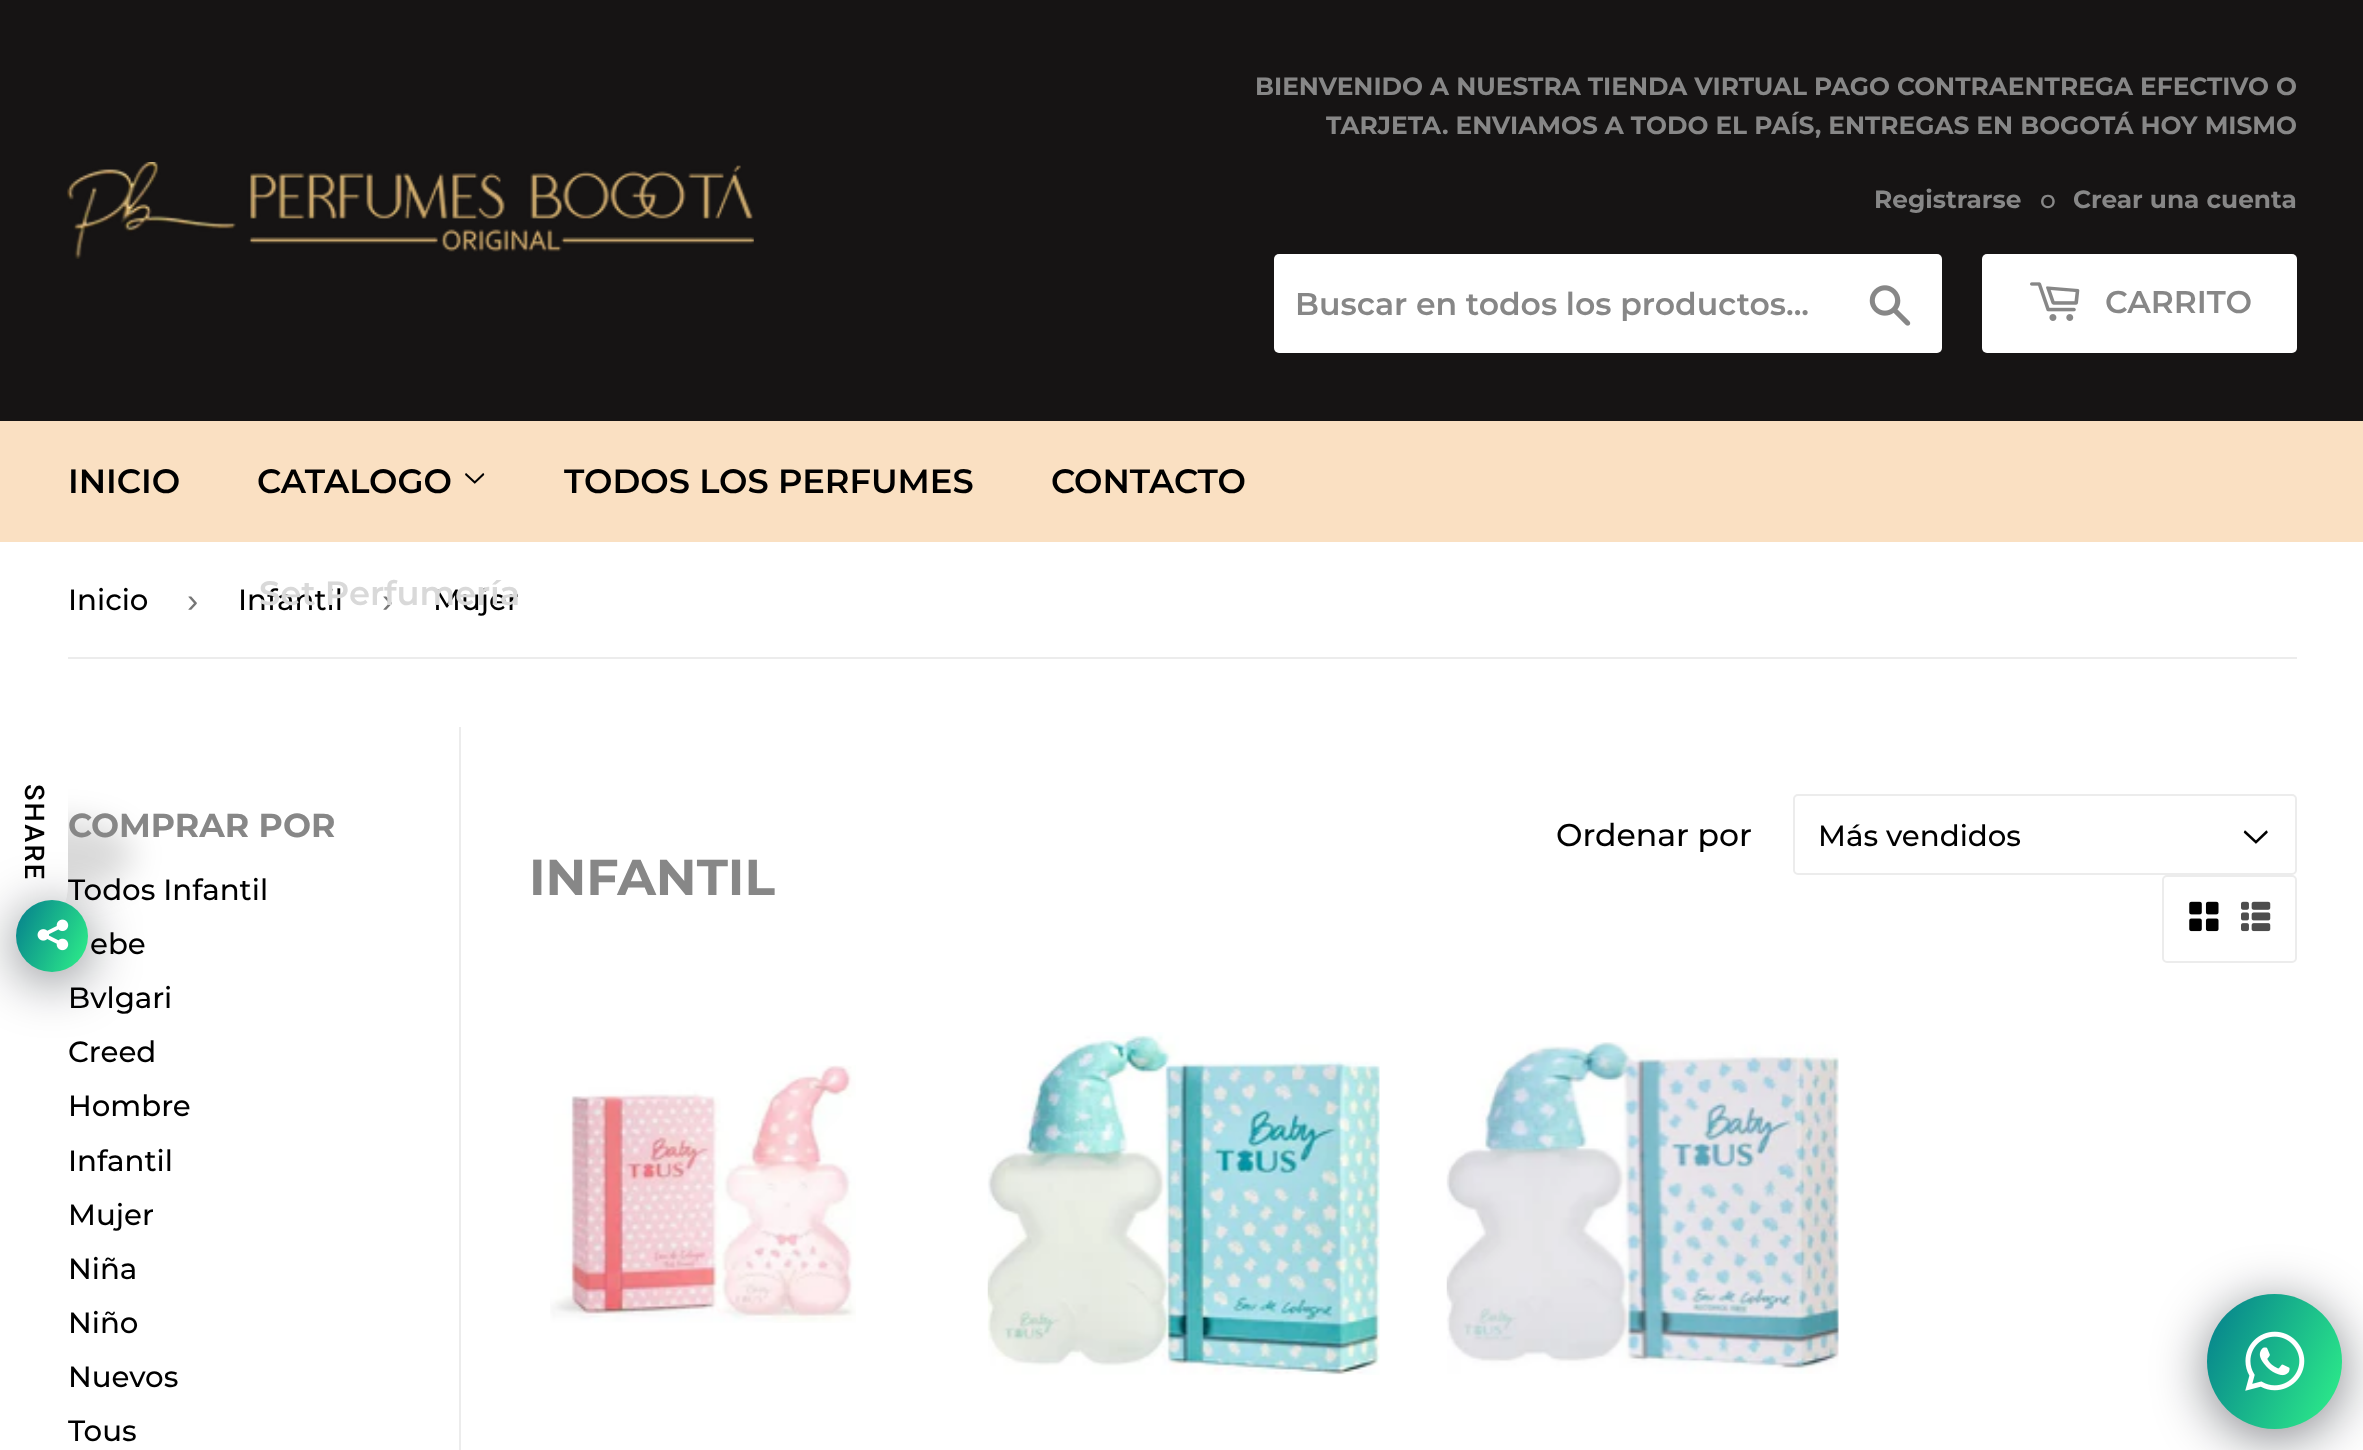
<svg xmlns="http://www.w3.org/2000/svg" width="2363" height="1450">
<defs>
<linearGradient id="g1" gradientUnits="userSpaceOnUse" x1="8" y1="916" x2="95" y2="956"><stop offset="0" stop-color="#047c8d"/><stop offset="1" stop-color="#2ff289"/></linearGradient>
<linearGradient id="g2" gradientUnits="userSpaceOnUse" x1="2193" y1="1323" x2="2356" y2="1399"><stop offset="0" stop-color="#047c8d"/><stop offset="1" stop-color="#2ff289"/></linearGradient>
</defs>
<rect width="100%" height="100%" fill="#fff"/>
<rect width="2363" height="421" fill="#161414"/>
<image x="67" y="162" width="687" height="97" href="media/1.png"/>
<text x="1255" y="95" style="font-family:Montserrat;font-size:24.85px;font-weight:bold;fill:#878787">BIENVENIDO A NUESTRA TIENDA VIRTUAL PAGO CONTRAENTREGA EFECTIVO O</text>
<text x="1326" y="134" style="font-family:Montserrat;font-size:24.85px;font-weight:bold;fill:#878787">TARJETA. ENVIAMOS A TODO EL PAÍS, ENTREGAS EN BOGOTÁ HOY MISMO</text>
<text x="1874" y="208" style="font-family:Montserrat;font-size:24.85px;font-weight:bold;fill:#878787">Registrarse</text>
<text x="2040" y="208" style="font-family:Montserrat;font-size:24.85px;font-weight:500;fill:#878787">o</text>
<text x="2073" y="208" style="font-family:Montserrat;font-size:24.85px;font-weight:bold;fill:#878787">Crear una cuenta</text>
<rect x="1274" y="254" width="668" height="99" rx="5" fill="#fff"/>
<text x="1295" y="315" style="font-family:Montserrat;font-size:31.5px;font-weight:600;fill:#878787">Buscar en todos los productos...</text>
<image x="1869" y="285" width="42" height="41" href="media/2.png"/>
<rect x="1982" y="254" width="315" height="99" rx="5" fill="#fff"/>
<image x="2030" y="282" width="50" height="39" href="media/3.png"/>
<text x="2105" y="313" style="font-family:Montserrat;font-size:31.5px;font-weight:600;fill:#878787">CARRITO</text>
<rect y="421" width="2363" height="121" fill="#fae0c2"/>
<text x="68" y="493" style="font-family:Montserrat;font-size:33.75px;font-weight:600;fill:#000">INICIO</text>
<text x="257" y="493" style="font-family:Montserrat;font-size:33.75px;font-weight:600;fill:#000">CATALOGO</text>
<image x="465" y="473" width="20" height="11" href="media/4.png"/>
<text x="238" y="610" style="font-family:Montserrat;font-size:29.25px;font-weight:500;fill:#000">Infantil</text>
<text x="382" y="612" style="font-family:Liberation Sans;font-size:33.75px;fill:#767676">›</text>
<text x="433" y="610" style="font-family:Montserrat;font-size:29.25px;font-weight:500;fill:#000">Mujer</text>
<text x="259" y="605" style="font-family:Montserrat;font-size:33.75px;font-weight:600;fill:#d9d9d9">Set Perfumería</text>
<text x="564" y="493" style="font-family:Montserrat;font-size:33.75px;font-weight:600;fill:#000">TODOS LOS PERFUMES</text>
<text x="1051" y="493" style="font-family:Montserrat;font-size:33.75px;font-weight:600;fill:#000">CONTACTO</text>
<rect x="-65" y="821" width="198" height="68" rx="63" fill="#00000026" filter="blur(16px)"/>
<text x="68" y="900" style="font-family:Montserrat;font-size:29.25px;font-weight:500;fill:#000">Todos Infantil</text>
<path d="M0 948v-198h58c5 0 10 4 10 9v126c0 35-29 63-64 63z" fill="#fff"/>
<text x="25" y="784" transform="rotate(90 25 784)" style="font-family:Roboto;font-size:27px;font-weight:500;letter-spacing:2.25px;fill:#000">SHARE</text>
<rect x="16" y="909" width="72" height="72" rx="36" fill="#02061080" filter="blur(27px)"/>
<circle cx="52" cy="936" r="36" fill="url(#g1)"/>
<image x="37" y="919" width="32" height="32" href="media/5.png"/>
<rect x="2207" y="1303" width="135" height="135" rx="67.5" fill="#02061080" filter="blur(27px)"/>
<circle cx="2274.5" cy="1361.5" r="67.5" fill="url(#g2)"/>
<image x="2245" y="1331" width="60" height="60" href="media/6.png"/>
<rect x="68" y="657" width="2229" height="2" fill="#ececec"/>
<text x="68" y="610" style="font-family:Montserrat;font-size:29.25px;font-weight:500;fill:#000">Inicio</text>
<text x="187" y="612" style="font-family:Liberation Sans;font-size:33.75px;fill:#767676">›</text>
<text x="68" y="837" style="font-family:Montserrat;font-size:33.25px;font-weight:bold;fill:#878787">COMPRAR POR</text>
<text x="90" y="954" style="font-family:Montserrat;font-size:29.25px;font-weight:500;fill:#000">ebe</text>
<text x="68" y="1008" style="font-family:Montserrat;font-size:29.25px;font-weight:500;fill:#000">Bvlgari</text>
<text x="68" y="1062" style="font-family:Montserrat;font-size:29.25px;font-weight:500;fill:#000">Creed</text>
<text x="68" y="1116" style="font-family:Montserrat;font-size:29.25px;font-weight:500;fill:#000">Hombre</text>
<text x="68" y="1171" style="font-family:Montserrat;font-size:29.25px;font-weight:500;fill:#000">Infantil</text>
<text x="68" y="1225" style="font-family:Montserrat;font-size:29.25px;font-weight:500;fill:#000">Mujer</text>
<text x="68" y="1279" style="font-family:Montserrat;font-size:29.25px;font-weight:500;fill:#000">Niña</text>
<text x="68" y="1333" style="font-family:Montserrat;font-size:29.25px;font-weight:500;fill:#000">Niño</text>
<text x="68" y="1387" style="font-family:Montserrat;font-size:29.25px;font-weight:500;fill:#000">Nuevos</text>
<text x="68" y="1441" style="font-family:Montserrat;font-size:29.25px;font-weight:500;fill:#000">Tous</text>
<rect x="459" y="727" width="2" height="723" fill="#ececec"/>
<text x="1556" y="846" style="font-family:Montserrat;font-size:31.5px;font-weight:500;fill:#000">Ordenar por</text>
<image x="2243" y="830" width="25" height="14" href="media/7.png"/>
<rect x="1794" y="795" width="502" height="79" rx="4" fill="none" stroke="#ececec" stroke-width="2"/>
<text x="1818" y="846" style="font-family:Montserrat;font-size:29.25px;font-weight:500;fill:#000">Más vendidos</text>
<rect x="2163" y="876" width="133" height="86" rx="4" fill="none" stroke="#ececec" stroke-width="2"/>
<image x="2189" y="901" width="30" height="31" href="media/8.png"/>
<image x="2241" y="901" width="30" height="31" href="media/9.png"/>
<text x="529" y="895" style="font-family:Montserrat;font-size:50.5px;font-weight:bold;fill:#878787">INFANTIL</text>
<image x="550" y="1065" width="306" height="258" href="media/10.png"/>
<image x="987" y="1032" width="393" height="343" href="media/11.png"/>
<image x="1446" y="1042" width="393" height="332" href="media/12.png"/>
</svg>
